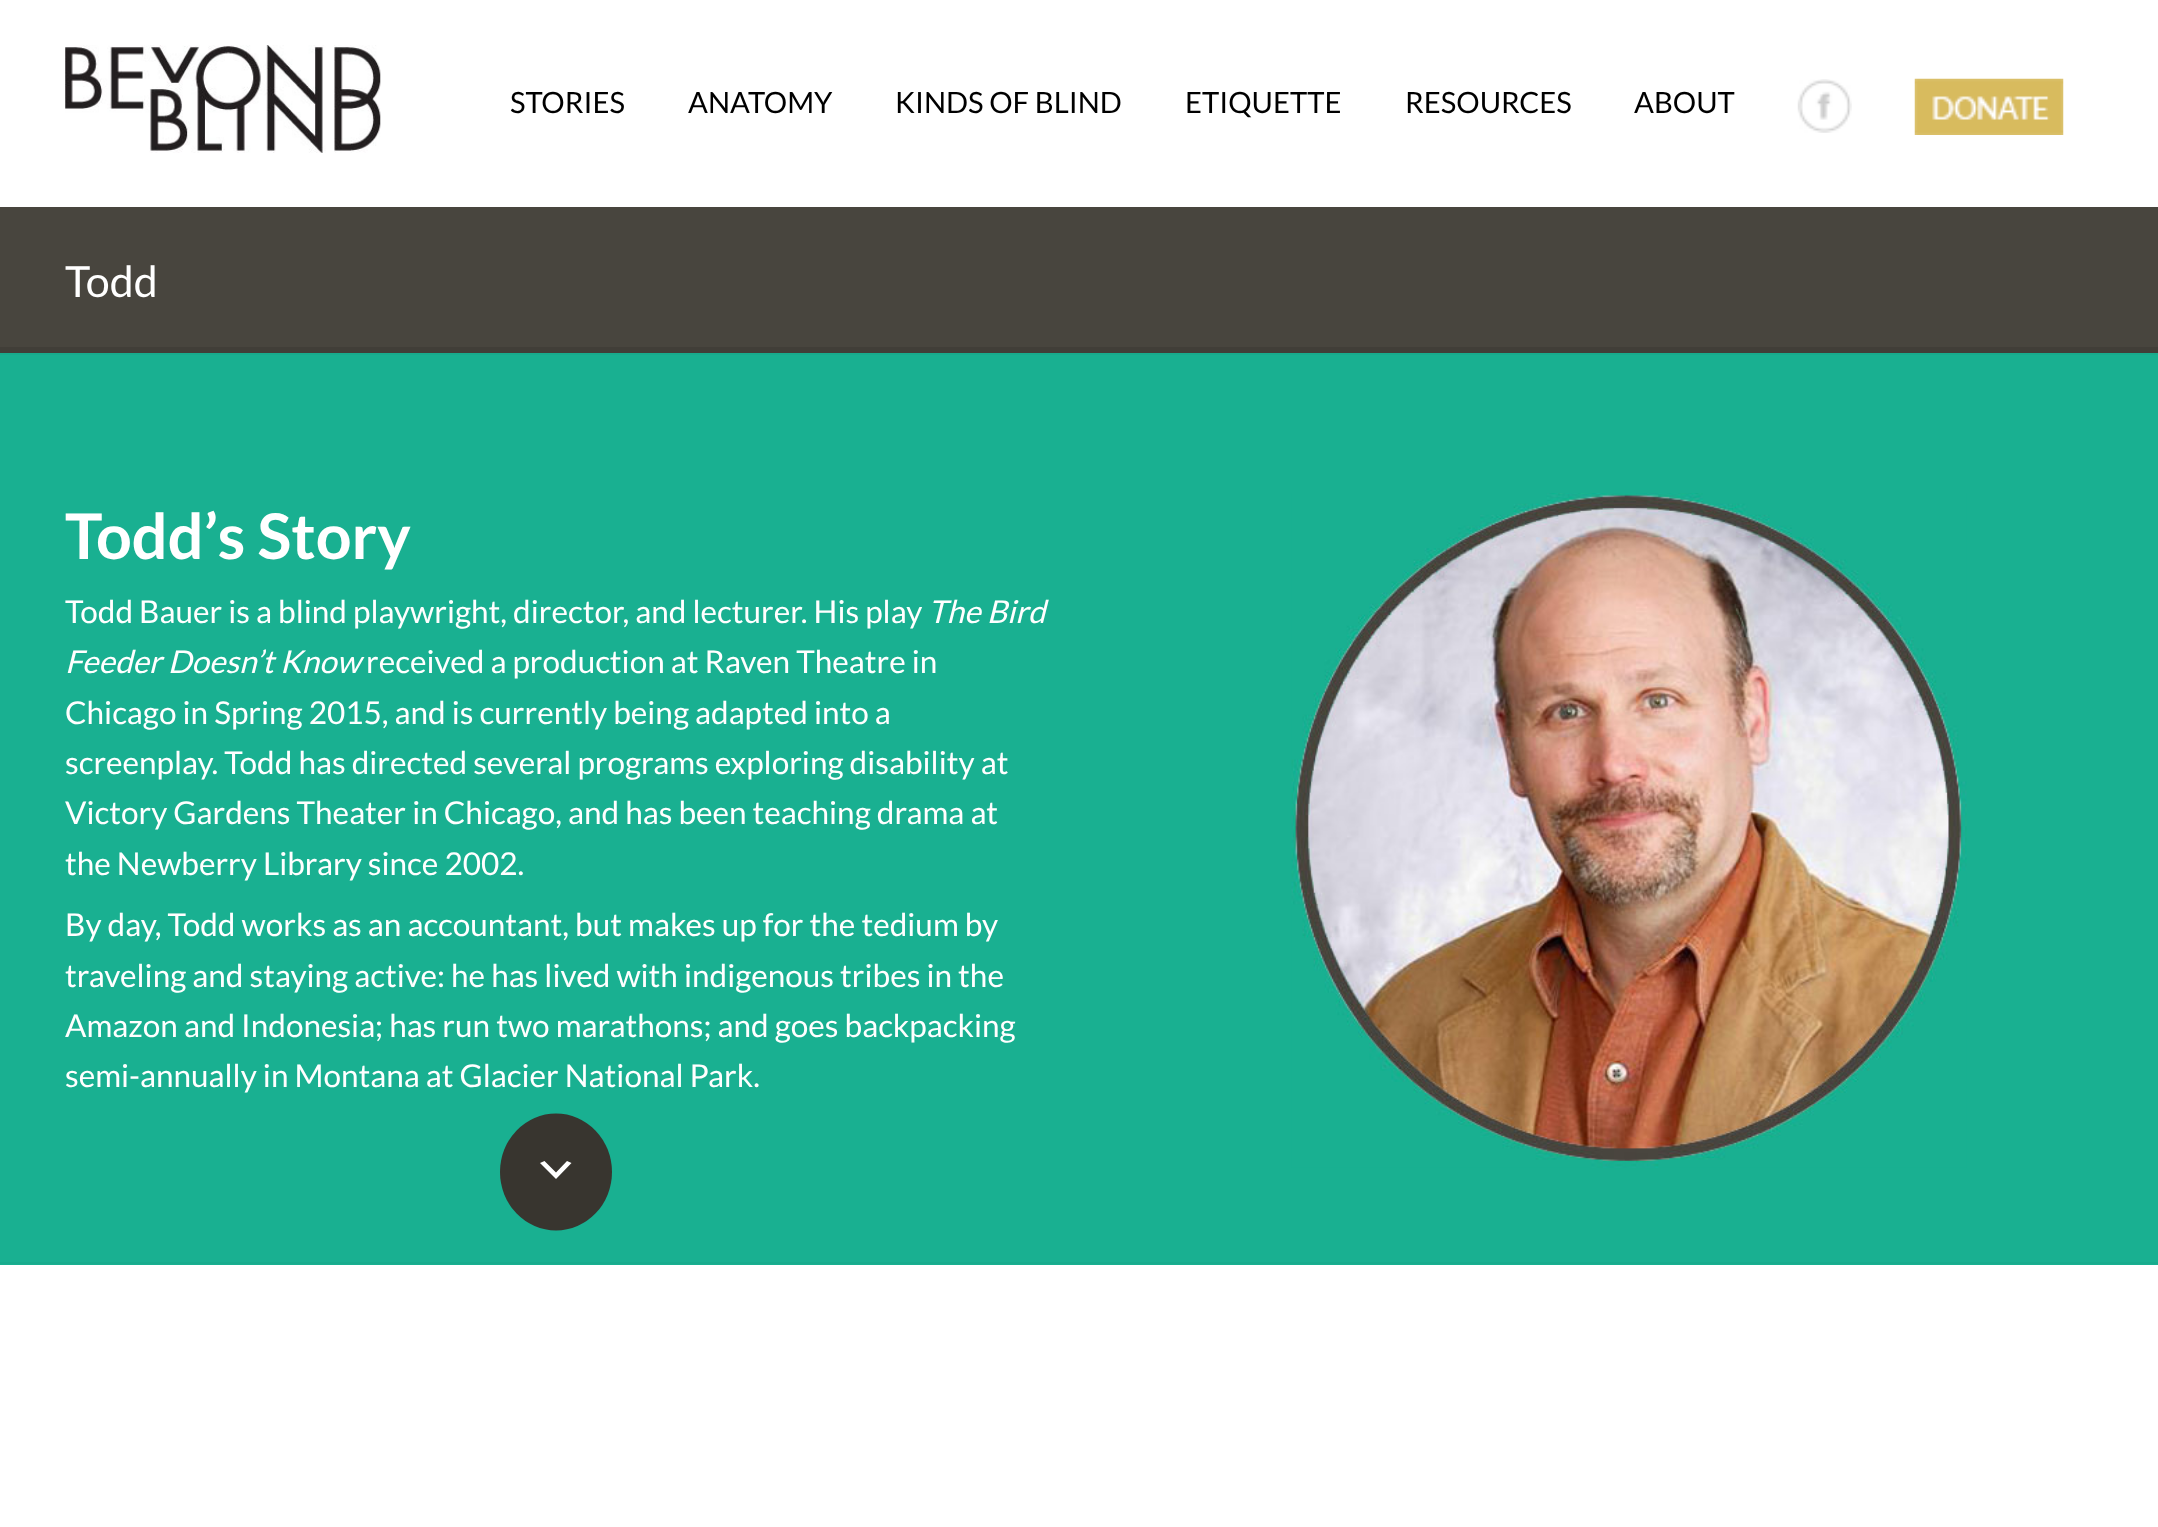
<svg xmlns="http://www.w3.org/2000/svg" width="2158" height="1527">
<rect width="100%" height="100%" fill="#fff"/>
<image x="65" y="45" width="316" height="108" href="media/1.png"/>
<text x="510" y="113" style="font-family:Lato;font-size:29.25px;fill:#000">STORIES</text>
<text x="688" y="113" style="font-family:Lato;font-size:29.25px;fill:#000">ANATOMY</text>
<text x="895" y="113" style="font-family:Lato;font-size:29.25px;fill:#000">KINDS OF BLIND</text>
<text x="1185" y="113" style="font-family:Lato;font-size:29.25px;fill:#000">ETIQUETTE</text>
<text x="1405" y="113" style="font-family:Lato;font-size:29.25px;fill:#000">RESOURCES</text>
<text x="1634" y="113" style="font-family:Lato;font-size:29.25px;fill:#000">ABOUT</text>
<image x="1797" y="79" width="55" height="54" href="media/2.png"/>
<image x="1914" y="78" width="150" height="57" href="media/3.png"/>
<rect y="207" width="2158" height="140" fill="#48453e"/>
<rect y="347" width="2158" height="6" fill="#413e38"/>
<text x="65" y="297" style="font-family:Lato;font-size:43px;fill:#fff">Todd</text>
<rect y="355" width="2158" height="910" fill="#19b091"/>
<rect y="1262" width="2158" height="2" fill="#18ab8d"/>
<rect y="353" width="2158" height="2" fill="#18ab8d"/>
<text x="65" y="559" style="font-family:Lato;font-size:63px;font-weight:bold;fill:#fff">Todd’s Story</text>
<text x="65" y="623" style="font-family:Lato;font-size:31.5px;fill:#fff">Todd Bauer is a blind playwright, director, and lecturer. His play</text>
<text x="928" y="623" style="font-family:Lato;font-size:31.5px;font-style:italic;fill:#fff">The Bird</text>
<text x="65" y="673" style="font-family:Lato;font-size:31.5px;font-style:italic;fill:#fff">Feeder Doesn’t Know</text>
<text x="366" y="673" style="font-family:Lato;font-size:31.5px;fill:#fff">received a production at Raven Theatre in</text>
<text x="65" y="724" style="font-family:Lato;font-size:31.5px;fill:#fff">Chicago in Spring 2015, and is currently being adapted into a</text>
<text x="65" y="774" style="font-family:Lato;font-size:31.5px;fill:#fff">screenplay. Todd has directed several programs exploring disability at</text>
<text x="65" y="824" style="font-family:Lato;font-size:31.5px;fill:#fff">Victory Gardens Theater in Chicago, and has been teaching drama at</text>
<text x="65" y="875" style="font-family:Lato;font-size:31.5px;fill:#fff">the Newberry Library since 2002.</text>
<text x="65" y="936" style="font-family:Lato;font-size:31.5px;fill:#fff">By day, Todd works as an accountant, but makes up for the tedium by</text>
<text x="65" y="987" style="font-family:Lato;font-size:31.5px;fill:#fff">traveling and staying active: he has lived with indigenous tribes in the</text>
<text x="65" y="1037" style="font-family:Lato;font-size:31.5px;fill:#fff">Amazon and Indonesia; has run two marathons; and goes backpacking</text>
<text x="65" y="1087" style="font-family:Lato;font-size:31.5px;fill:#fff">semi-annually in Montana at Glacier National Park.</text>
<ellipse cx="556" cy="1172" rx="56" ry="58.5" fill="#38352f"/>
<path d="M544.5 1161l11.5 11.5l11-11.5l4.5 2l-15.5 16l-16-16z" fill="#fff"/>
<image x="1291" y="493" width="676" height="675" href="media/4.png"/>
</svg>
